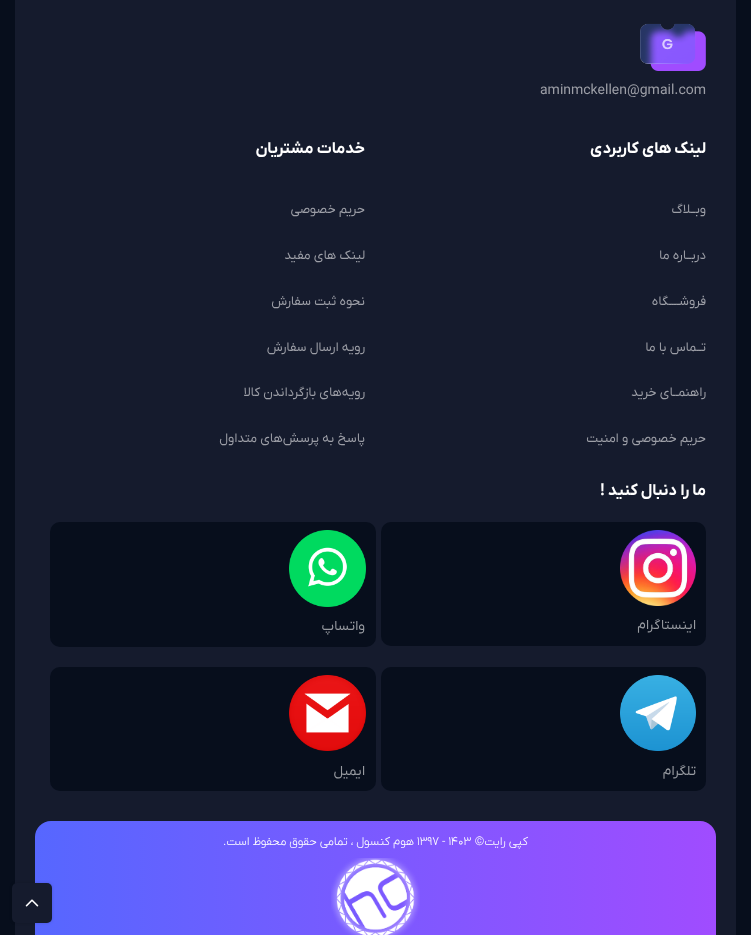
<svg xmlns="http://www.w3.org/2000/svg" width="751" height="935">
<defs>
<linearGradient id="g1" gradientUnits="userSpaceOnUse" x1="35" y1="896" x2="716" y2="896"><stop offset="0" stop-color="#5667ff"/><stop offset="1" stop-color="#a04cff"/></linearGradient>
</defs>
<rect width="100%" height="100%" fill="#070e1c"/>
<rect x="15" width="721" height="935" fill="#151b2d"/>
<image x="640" y="23" width="66" height="48" href="media/1.png"/>
<text x="540" y="94" style="font-family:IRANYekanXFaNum;font-size:14px;fill:#9d9fa7">aminmckellen@gmail.com</text>
<text x="706" y="153" style="font-family:IRANYekanXFaNum;font-size:16px;font-weight:bold;direction:rtl;fill:#fff">لینک های کاربردی</text>
<text x="706" y="213" style="font-family:IRANYekanXFaNum;font-size:13px;direction:rtl;fill:#9d9fa7">وبــلاگ</text>
<text x="706" y="259" style="font-family:IRANYekanXFaNum;font-size:13px;direction:rtl;fill:#9d9fa7">دربــاره ما</text>
<text x="706" y="305" style="font-family:IRANYekanXFaNum;font-size:13px;direction:rtl;fill:#9d9fa7">فروشــــگاه</text>
<text x="706" y="351" style="font-family:IRANYekanXFaNum;font-size:13px;direction:rtl;fill:#9d9fa7">تــماس با ما</text>
<text x="706" y="396" style="font-family:IRANYekanXFaNum;font-size:13px;direction:rtl;fill:#9d9fa7">راهنمــای خرید</text>
<text x="706" y="442" style="font-family:IRANYekanXFaNum;font-size:13px;direction:rtl;fill:#9d9fa7">حریم خصوصی و امنیت</text>
<text x="365" y="153" style="font-family:IRANYekanXFaNum;font-size:16px;font-weight:bold;direction:rtl;fill:#fff">خدمات مشتریان</text>
<text x="365" y="213" style="font-family:IRANYekanXFaNum;font-size:13px;direction:rtl;fill:#9d9fa7">حریم خصوصی</text>
<text x="365" y="259" style="font-family:IRANYekanXFaNum;font-size:13px;direction:rtl;fill:#9d9fa7">لینک های مفید</text>
<text x="365" y="305" style="font-family:IRANYekanXFaNum;font-size:13px;direction:rtl;fill:#9d9fa7">نحوه ثبت سفارش</text>
<text x="365" y="351" style="font-family:IRANYekanXFaNum;font-size:13px;direction:rtl;fill:#9d9fa7">رویه ارسال سفارش</text>
<text x="365" y="396" style="font-family:IRANYekanXFaNum;font-size:13px;direction:rtl;fill:#9d9fa7">رویه‌های بازگرداندن کالا</text>
<text x="365" y="442" style="font-family:IRANYekanXFaNum;font-size:13px;direction:rtl;fill:#9d9fa7">پاسخ به پرسش‌های متداول</text>
<text x="706" y="495" style="font-family:IRANYekanXFaNum;font-size:16px;font-weight:bold;direction:rtl;fill:#fff">ما را</text>
<text x="677" y="495" style="font-family:IRANYekanXFaNum;font-size:16px;font-weight:bold;direction:rtl;fill:#fff">دنبال کنید !</text>
<rect x="381" y="522" width="325" height="124" rx="10" fill="#070e1c"/>
<image x="620" y="530" width="76" height="76" href="media/2.png"/>
<text x="696" y="629" style="font-family:IRANYekanXFaNum;font-size:14px;direction:rtl;fill:#979aa0">اینستاگرام</text>
<rect x="50" y="522" width="326" height="125" rx="10" fill="#070e1c"/>
<image x="289" y="530" width="77" height="77" href="media/3.png"/>
<text x="365" y="630" style="font-family:IRANYekanXFaNum;font-size:14px;direction:rtl;fill:#979aa0">واتساپ</text>
<rect x="381" y="667" width="325" height="124" rx="10" fill="#070e1c"/>
<image x="620" y="675" width="76" height="76" href="media/4.png"/>
<text x="696" y="775" style="font-family:IRANYekanXFaNum;font-size:14px;direction:rtl;fill:#979aa0">تلگرام</text>
<rect x="50" y="667" width="326" height="124" rx="10" fill="#070e1c"/>
<image x="289" y="675" width="77" height="76" href="media/5.png"/>
<text x="365" y="775" style="font-family:IRANYekanXFaNum;font-size:14px;direction:rtl;fill:#979aa0">ایمیل</text>
<rect x="35" y="821" width="681" height="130" rx="16" fill="url(#g1)"/>
<text x="528" y="845" style="font-family:IRANYekanXFaNum;font-size:12px;font-weight:300;direction:rtl;fill:#fff">کپی رایت©</text>
<text x="417" y="845" style="font-family:IRANYekanXFaNum;font-size:12px;font-weight:300;fill:#fff">1397 - 1403</text>
<text x="414" y="845" style="font-family:IRANYekanXFaNum;font-size:12px;font-weight:300;direction:rtl;fill:#fff">هوم کنسول ، تمامی حقوق محفوظ است.</text>
<image x="331" y="858" width="89" height="77" href="media/6.png"/>
<rect x="12" y="883" width="40" height="40" rx="5" fill="#00000026" filter="blur(1.5px)"/>
<rect x="12" y="883" width="40" height="40" rx="5" fill="#151b2d"/>
<image x="25" y="899" width="14" height="8" href="media/7.png"/>
</svg>
